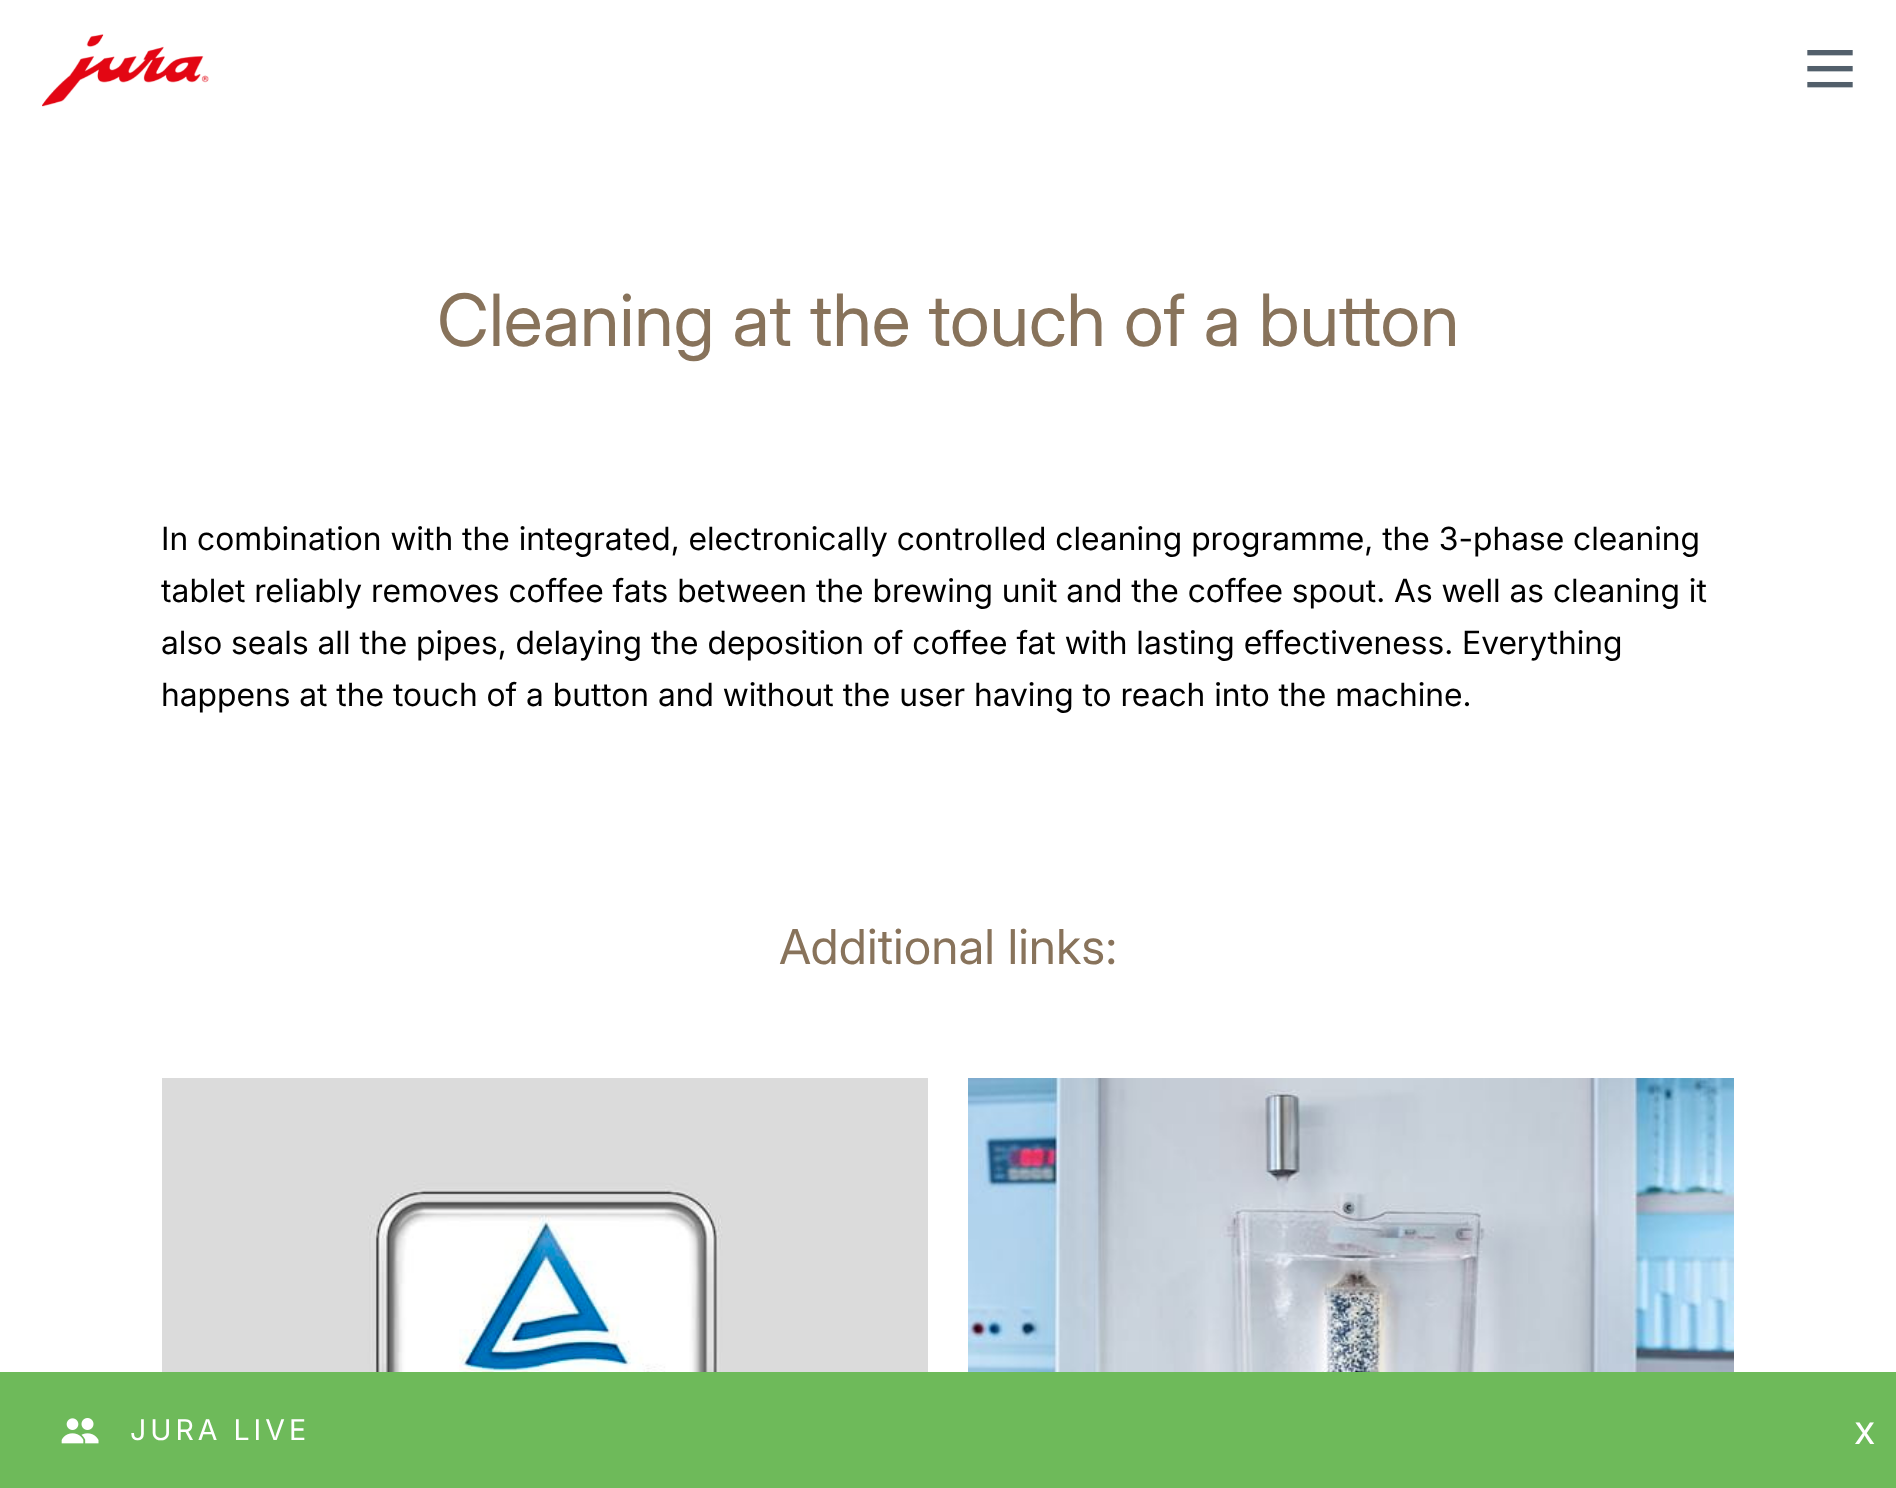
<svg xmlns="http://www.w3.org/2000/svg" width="1896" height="1488">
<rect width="100%" height="100%" fill="#fff"/>
<image x="42" y="34" width="167" height="73" href="media/1.png"/>
<image x="1807" y="50" width="46" height="38" href="media/2.png"/>
<text x="437" y="346" style="font-family:'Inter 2';font-size:72px;fill:#88735b">Cleaning at the touch of a button</text>
<text x="161" y="550" style="font-family:'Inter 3';font-size:32px;fill:#000">In combination with the integrated, electronically controlled cleaning programme, the 3-phase cleaning</text>
<text x="161" y="602" style="font-family:'Inter 3';font-size:32px;fill:#000">tablet reliably removes coffee fats between the brewing unit and the coffee spout. As well as cleaning it</text>
<text x="161" y="654" style="font-family:'Inter 3';font-size:32px;fill:#000">also seals all the pipes, delaying the deposition of coffee fat with lasting effectiveness. Everything</text>
<text x="161" y="706" style="font-family:'Inter 3';font-size:32px;fill:#000">happens at the touch of a button and without the user having to reach into the machine.</text>
<text x="779" y="964" style="font-family:Inter;font-size:48px;fill:#88735b">Additional links:</text>
<image x="162" y="1078" width="766" height="294" href="media/3.png"/>
<image x="968" y="1078" width="766" height="294" href="media/4.png"/>
<rect y="1372" width="1896" height="116" fill="#6eba5a"/>
<image x="61" y="1418" width="38" height="26" href="media/5.png"/>
<text x="130" y="1440" style="font-family:'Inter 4';font-size:28.5px;letter-spacing:4px;fill:#fff">JURA LIVE</text>
<text x="1854" y="1444" style="font-family:'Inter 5';font-size:40px;fill:#fff">x</text>
</svg>
